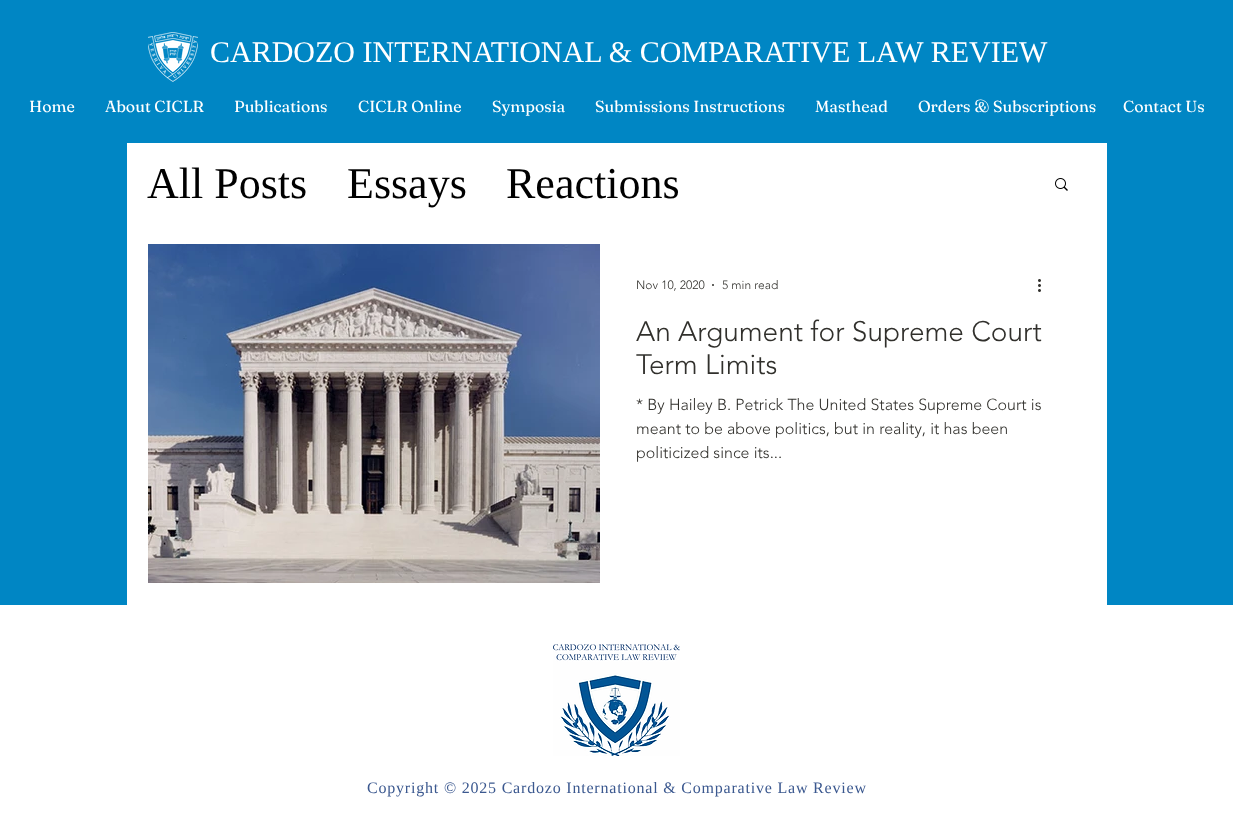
<svg xmlns="http://www.w3.org/2000/svg" width="1233" height="832">
<rect width="100%" height="100%" fill="#fff"/>
<rect width="1233" height="605" fill="#0086c4"/>
<image x="148" y="32" width="50" height="50" href="media/1.png"/>
<text x="210" y="62" style="font-family:Liberation Serif;font-size:30px;fill:#fff">CARDOZO INTERNATIONAL &amp; COMPARATIVE LAW REVIEW</text>
<text x="29" y="112" style="font-family:Fraunces;font-size:16px;fill:#fff">Home</text>
<text x="105" y="112" style="font-family:Fraunces;font-size:16px;fill:#fff">About CICLR</text>
<text x="234" y="112" style="font-family:Fraunces;font-size:16px;fill:#fff">Publications</text>
<text x="358" y="112" style="font-family:Fraunces;font-size:16px;fill:#fff">CICLR Online</text>
<text x="492" y="112" style="font-family:Fraunces;font-size:16px;fill:#fff">Symposia</text>
<text x="595" y="112" style="font-family:Fraunces;font-size:16px;fill:#fff">Submissions Instructions</text>
<text x="815" y="112" style="font-family:Fraunces;font-size:16px;fill:#fff">Masthead</text>
<text x="918" y="112" style="font-family:Fraunces;font-size:16px;fill:#fff">Orders &amp; Subscriptions</text>
<text x="1123" y="112" style="font-family:Fraunces;font-size:16px;fill:#fff">Contact Us</text>
<rect x="127" y="143" width="980" height="462" fill="#fff"/>
<text x="147" y="198" style="font-family:Liberation Serif;font-size:44px;fill:#000">All Posts</text>
<text x="347" y="198" style="font-family:Liberation Serif;font-size:44px;fill:#000">Essays</text>
<text x="506" y="198" style="font-family:Liberation Serif;font-size:44px;fill:#000">Reactions</text>
<image x="1055" y="178" width="13" height="13" href="media/2.png"/>
<image x="148" y="244" width="452" height="339" href="media/3.png"/>
<text x="636" y="289" style="font-family:'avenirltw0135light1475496';font-size:12px;font-weight:300;fill:#31302c">Nov 10, 2020</text>
<circle cx="713" cy="285" r="1" fill="#31302c"/>
<text x="722" y="289" style="font-family:'avenirltw0135light1475496';font-size:12px;font-weight:300;fill:#31302c">5 min read</text>
<image x="1038" y="279" width="3" height="13" href="media/4.png"/>
<text x="636" y="341" style="font-family:'avenirltw0135light1475496';font-size:28px;font-weight:300;fill:#31302c">An Argument for Supreme Court</text>
<text x="636" y="374" style="font-family:'avenirltw0135light1475496';font-size:28px;font-weight:300;fill:#31302c">Term Limits</text>
<text x="636" y="410" style="font-family:'avenirltw0135light1475496';font-size:16px;font-weight:300;fill:#31302c">* By Hailey B. Petrick The United States Supreme Court is</text>
<text x="636" y="434" style="font-family:'avenirltw0135light1475496';font-size:16px;font-weight:300;fill:#31302c">meant to be above politics, but in reality, it has been</text>
<text x="636" y="458" style="font-family:'avenirltw0135light1475496';font-size:16px;font-weight:300;fill:#31302c">politicized since its...</text>
<image x="553" y="644" width="127" height="112" href="media/5.png"/>
<text x="367" y="793" style="font-family:Liberation Serif;font-size:16px;letter-spacing:0.8px;fill:#3b588f">Copyright © 2025 Cardozo International &amp; Comparative Law Review</text>
</svg>
